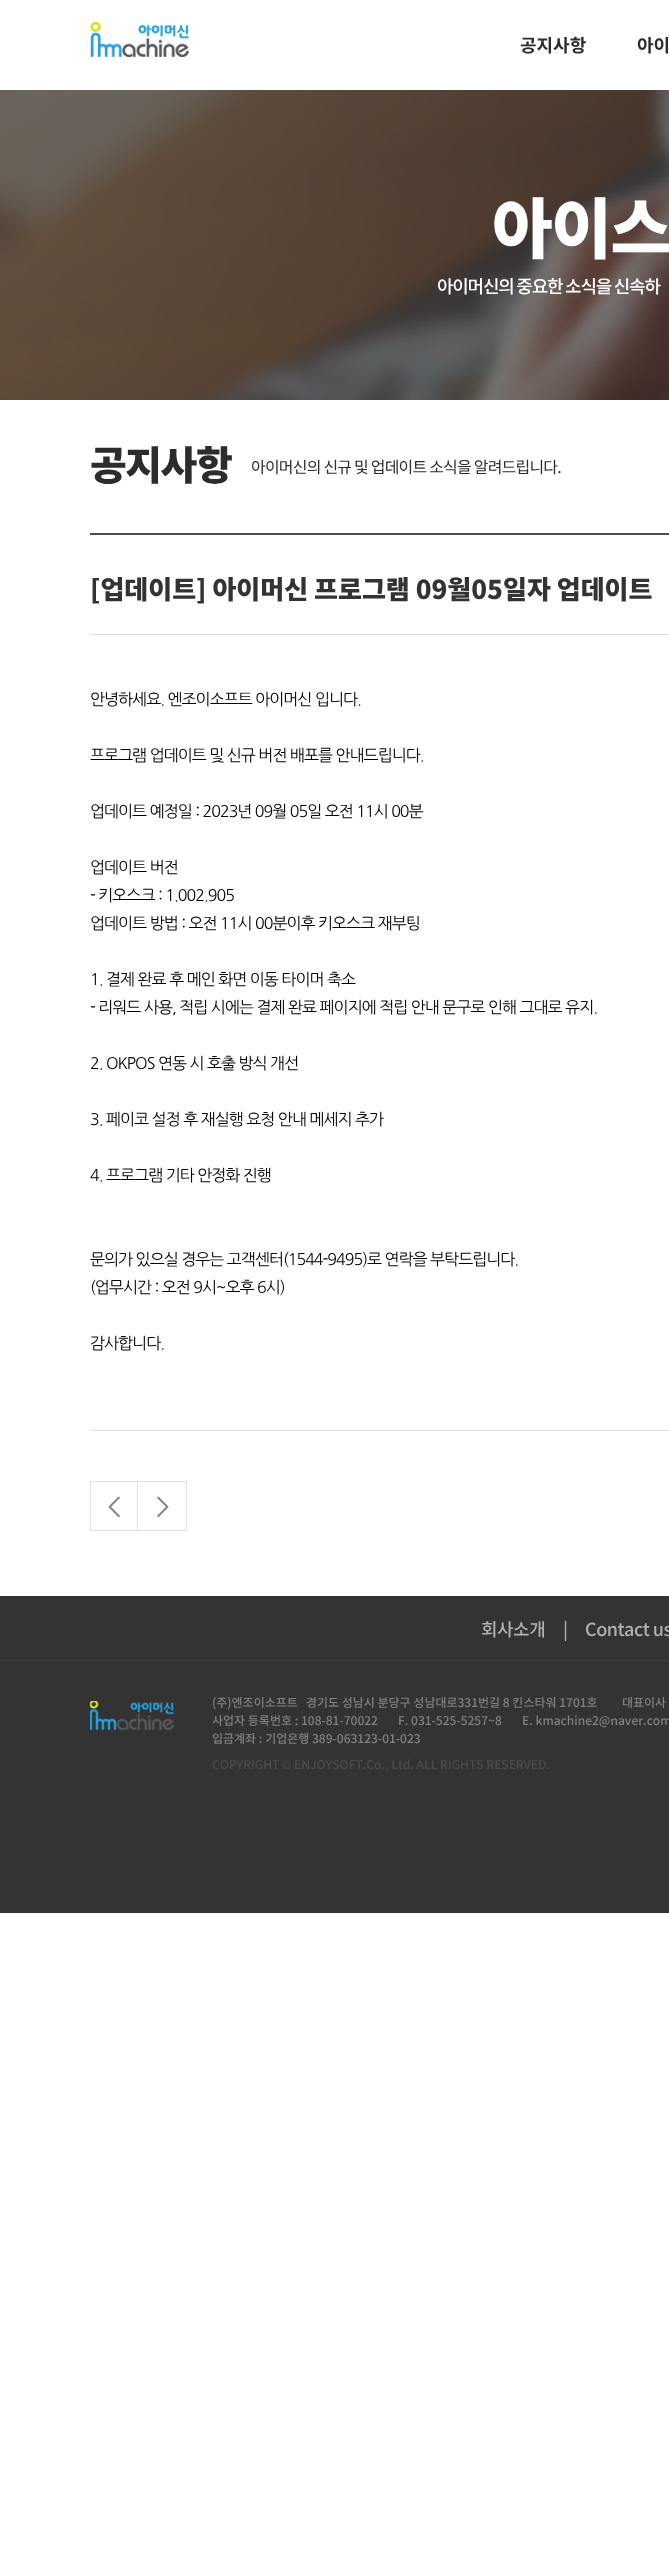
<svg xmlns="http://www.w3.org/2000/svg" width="669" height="2554">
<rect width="100%" height="100%" fill="#fff"/>
<image x="90" y="22" width="99" height="35" href="media/1.png"/>
<text x="520" y="52" style="font-family:Noto Sans KR;font-size:18px;font-weight:bold;fill:#2c2c2c">공지사항</text>
<text x="637" y="52" style="font-family:Noto Sans KR;font-size:18px;font-weight:bold;fill:#2c2c2c">아이</text>
<image x="0" y="90" width="669" height="310" href="media/2.png"/>
<text x="492" y="253" style="font-family:Noto Sans KR;font-size:66px;font-weight:900;letter-spacing:-1.5px;fill:#fff">아이스</text>
<text x="437" y="293" style="font-family:Noto Sans KR;font-size:18px;font-weight:500;letter-spacing:-1.25px;fill:#fff">아이머신의 중요한 소식을 신속하</text>
<text x="90" y="480" style="font-family:Noto Sans KR;font-size:40px;font-weight:900;letter-spacing:-1.5px;fill:#2c2c2c">공지사항</text>
<text x="251" y="473" style="font-family:Noto Sans KR;font-size:16px;letter-spacing:-0.8px;fill:#2c2c2c">아이머신의 신규 및 업데이트 소식을 알려드립니다.</text>
<rect x="90" y="533" width="579" height="2" fill="#4d4d4d"/>
<rect x="90" y="634" width="579" height="1" fill="#dfdfdf"/>
<text x="90" y="599" style="font-family:Noto Sans KR;font-size:26px;font-weight:900;fill:#333">[업데이트] 아이머신 프로그램 09월05일자 업데이트</text>
<text x="90" y="705" style="font-family:NanumGothic;font-size:16px;letter-spacing:-1px;fill:#000">안녕하세요. 엔조이소프트 아이머신 입니다.</text>
<text x="90" y="761" style="font-family:NanumGothic;font-size:16px;letter-spacing:-1px;fill:#000">프로그램 업데이트 및 신규 버전 배포를 안내드립니다.</text>
<text x="90" y="817" style="font-family:NanumGothic;font-size:16px;letter-spacing:-1px;fill:#000">업데이트 예정일 : 2023년 09월 05일 오전 11시 00분</text>
<text x="90" y="873" style="font-family:NanumGothic;font-size:16px;letter-spacing:-1px;fill:#000">업데이트 버전</text>
<text x="90" y="901" style="font-family:NanumGothic;font-size:16px;letter-spacing:-1px;fill:#000">- 키오스크 : 1.002.905</text>
<text x="90" y="929" style="font-family:NanumGothic;font-size:16px;letter-spacing:-1px;fill:#000">업데이트 방법 : 오전 11시 00분이후 키오스크 재부팅</text>
<text x="90" y="985" style="font-family:NanumGothic;font-size:16px;letter-spacing:-1px;fill:#000">1. 결제 완료 후 메인 화면 이동 타이머 축소</text>
<text x="90" y="1013" style="font-family:NanumGothic;font-size:16px;letter-spacing:-1px;fill:#000">- 리워드 사용, 적립 시에는 결제 완료 페이지에 적립 안내 문구로 인해 그대로 유지.</text>
<text x="90" y="1069" style="font-family:NanumGothic;font-size:16px;letter-spacing:-1px;fill:#000">2. OKPOS 연동 시 호출 방식 개선</text>
<text x="90" y="1125" style="font-family:NanumGothic;font-size:16px;letter-spacing:-1px;fill:#000">3. 페이코 설정 후 재실행 요청 안내 메세지 추가</text>
<text x="90" y="1181" style="font-family:NanumGothic;font-size:16px;letter-spacing:-1px;fill:#000">4. 프로그램 기타 안정화 진행</text>
<text x="90" y="1265" style="font-family:NanumGothic;font-size:16px;letter-spacing:-1px;fill:#000">문의가 있으실 경우는 고객센터(1544-9495)로 연락을 부탁드립니다.</text>
<text x="90" y="1293" style="font-family:NanumGothic;font-size:16px;letter-spacing:-1px;fill:#000">(업무시간 : 오전 9시~오후 6시)</text>
<text x="90" y="1349" style="font-family:NanumGothic;font-size:16px;letter-spacing:-1px;fill:#000">감사합니다.</text>
<rect x="90" y="1430" width="579" height="1" fill="#dfdfdf"/>
<image x="90" y="1481" width="47" height="50" href="media/3.png"/>
<image x="137" y="1481" width="50" height="50" href="media/4.png"/>
<rect y="1596" width="669" height="64" fill="#333"/>
<rect y="1660" width="669" height="1" fill="#3e3e3e"/>
<text x="481" y="1636" style="font-family:Noto Sans KR;font-size:18px;font-weight:500;letter-spacing:-0.5px;fill:#b5afaf">회사소개</text>
<text x="563" y="1636" style="font-family:Noto Sans KR;font-size:18px;font-weight:500;letter-spacing:-0.5px;fill:#b5afaf">|</text>
<text x="585" y="1636" style="font-family:Noto Sans KR;font-size:18px;font-weight:500;letter-spacing:-0.5px;fill:#b5afaf">Contact us</text>
<rect y="1661" width="669" height="252" fill="#333"/>
<image x="90" y="1701" width="84" height="29" href="media/5.png"/>
<text x="212" y="1707" style="font-family:Noto Sans KR;font-size:12px;font-weight:500;fill:#808080" xml:space="preserve">(주)엔조이소프트   경기도 성남시 분당구 성남대로331번길 8 킨스타워 1701호</text>
<text x="622" y="1707" style="font-family:Noto Sans KR;font-size:12px;font-weight:500;fill:#808080">대표이사</text>
<text x="212" y="1725" style="font-family:Noto Sans KR;font-size:12px;font-weight:500;fill:#808080">사업자 등록번호 : 108-81-70022</text>
<text x="398" y="1725" style="font-family:Noto Sans KR;font-size:12px;font-weight:500;fill:#808080">F. 031-525-5257~8</text>
<text x="522" y="1725" style="font-family:Noto Sans KR;font-size:12px;font-weight:500;fill:#808080">E. kmachine2@naver.com</text>
<text x="212" y="1743" style="font-family:Noto Sans KR;font-size:12px;font-weight:500;fill:#808080">입금계좌 : 기업은행 389-063123-01-023</text>
<text x="212" y="1769" style="font-family:Noto Sans KR;font-size:12px;font-weight:500;fill:#4c4c4c">COPYRIGHT</text>
<text x="282" y="1769" style="font-family:Dotum;font-size:12px;fill:#4c4c4c">©</text>
<text x="294" y="1769" style="font-family:Noto Sans KR;font-size:12px;font-weight:500;fill:#4c4c4c">ENJOYSOFT.Co., Ltd. ALL RIGHTS RESERVED.</text>
</svg>
